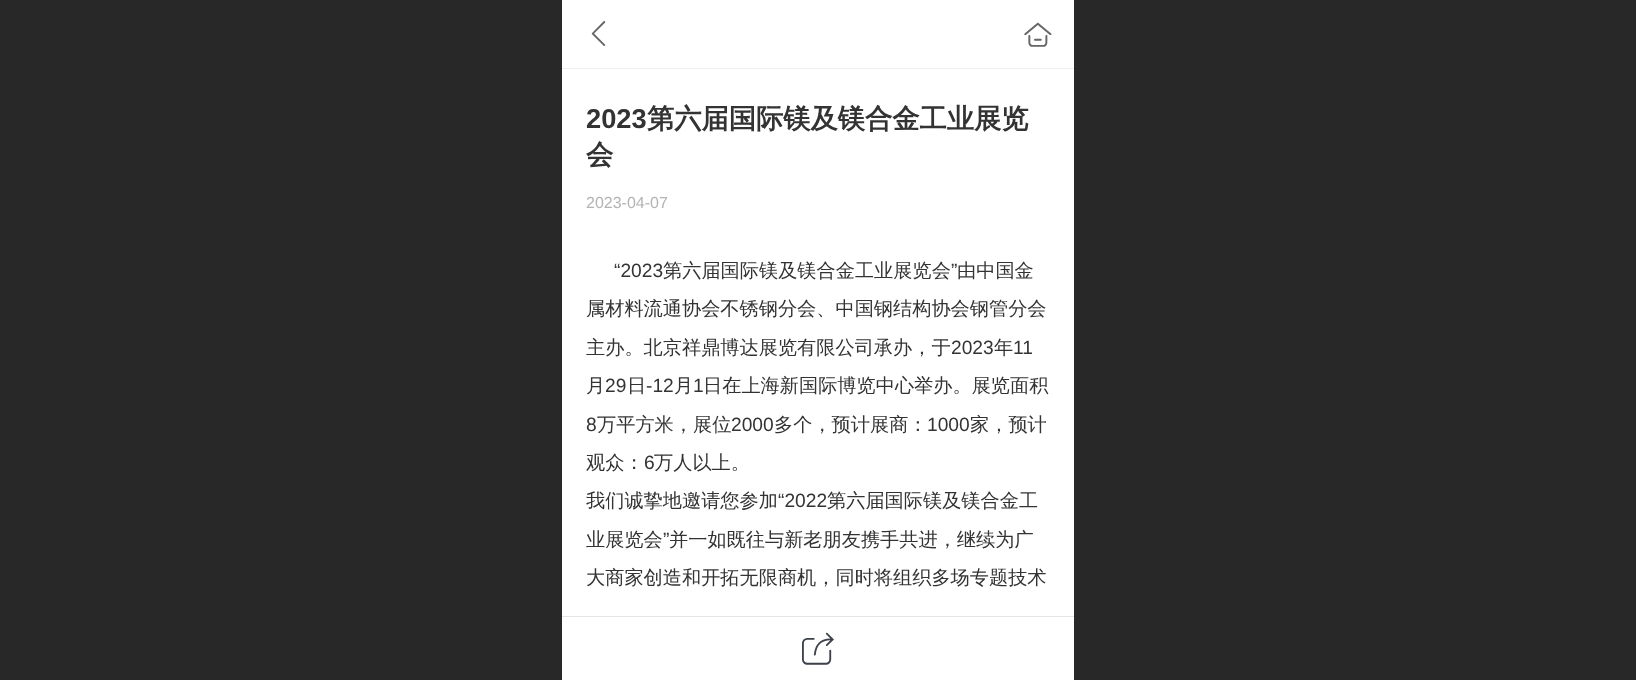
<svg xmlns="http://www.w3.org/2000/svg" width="1636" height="680">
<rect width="100%" height="100%" fill="#fff"/>
<rect width="562" height="680" fill="#282828"/>
<rect x="562" y="68" width="512" height="1" fill="#eee"/>
<text x="586" y="44" style="font-family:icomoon;font-size:25px;fill:#666">򰊔</text>
<text x="1024" y="46" style="font-family:icomoon;font-size:27.25px;fill:#666">򰌓</text>
<text x="586" y="128" style="font-family:Liberation Sans;font-size:27.25px;font-weight:bold;fill:#333">2023</text>
<text x="647" y="128" style="font-family:WenQuanYi Zen Hei;font-size:27.25px;font-weight:bold;fill:#333">第六届国际镁及镁合金工业展览</text>
<text x="586" y="164" style="font-family:WenQuanYi Zen Hei;font-size:27.25px;font-weight:bold;fill:#333">会</text>
<text x="586" y="208" style="font-family:Liberation Sans;font-size:16px;fill:#b3b3b3">2023-04-07</text>
<text x="614" y="277" style="font-family:Liberation Sans;font-size:19.2px;fill:#333">“2023</text>
<text x="663" y="277" style="font-family:WenQuanYi Zen Hei;font-size:19.2px;font-weight:500;fill:#333">第六届国际镁及镁合金工业展览会</text>
<text x="951" y="277" style="font-family:Liberation Sans;font-size:19.2px;fill:#333">”</text>
<text x="957" y="277" style="font-family:WenQuanYi Zen Hei;font-size:19.2px;font-weight:500;fill:#333">由中国金</text>
<text x="586" y="315" style="font-family:WenQuanYi Zen Hei;font-size:19.2px;font-weight:500;fill:#333">属材料流通协会不锈钢分会、中国钢结构协会钢管分会</text>
<text x="586" y="354" style="font-family:WenQuanYi Zen Hei;font-size:19.2px;font-weight:500;fill:#333">主办。北京祥鼎博达展览有限公司承办，于</text>
<text x="951" y="354" style="font-family:Liberation Sans;font-size:19.2px;fill:#333">2023</text>
<text x="994" y="354" style="font-family:WenQuanYi Zen Hei;font-size:19.2px;font-weight:500;fill:#333">年</text>
<text x="1013" y="354" style="font-family:Liberation Sans;font-size:19.2px;fill:#333">11</text>
<text x="586" y="392" style="font-family:WenQuanYi Zen Hei;font-size:19.2px;font-weight:500;fill:#333">月</text>
<text x="605" y="392" style="font-family:Liberation Sans;font-size:19.2px;fill:#333">29</text>
<text x="627" y="392" style="font-family:WenQuanYi Zen Hei;font-size:19.2px;font-weight:500;fill:#333">日</text>
<text x="646" y="392" style="font-family:Liberation Sans;font-size:19.2px;fill:#333">-12</text>
<text x="674" y="392" style="font-family:WenQuanYi Zen Hei;font-size:19.2px;font-weight:500;fill:#333">月</text>
<text x="693" y="392" style="font-family:Liberation Sans;font-size:19.2px;fill:#333">1</text>
<text x="703" y="392" style="font-family:WenQuanYi Zen Hei;font-size:19.2px;font-weight:500;fill:#333">日在上海新国际博览中心举办。展览面积</text>
<text x="586" y="431" style="font-family:Liberation Sans;font-size:19.2px;fill:#333">8</text>
<text x="597" y="431" style="font-family:WenQuanYi Zen Hei;font-size:19.2px;font-weight:500;fill:#333">万平方米，展位</text>
<text x="731" y="431" style="font-family:Liberation Sans;font-size:19.2px;fill:#333">2000</text>
<text x="774" y="431" style="font-family:WenQuanYi Zen Hei;font-size:19.2px;font-weight:500;fill:#333">多个，预计展商：</text>
<text x="927" y="431" style="font-family:Liberation Sans;font-size:19.2px;fill:#333">1000</text>
<text x="970" y="431" style="font-family:WenQuanYi Zen Hei;font-size:19.2px;font-weight:500;fill:#333">家，预计</text>
<text x="586" y="469" style="font-family:WenQuanYi Zen Hei;font-size:19.2px;font-weight:500;fill:#333">观众：</text>
<text x="644" y="469" style="font-family:Liberation Sans;font-size:19.2px;fill:#333">6</text>
<text x="654" y="469" style="font-family:WenQuanYi Zen Hei;font-size:19.2px;font-weight:500;fill:#333">万人以上。</text>
<text x="586" y="507" style="font-family:WenQuanYi Zen Hei;font-size:19.2px;font-weight:500;fill:#333">我们诚挚地邀请您参加</text>
<text x="778" y="507" style="font-family:Liberation Sans;font-size:19.2px;fill:#333">“2022</text>
<text x="827" y="507" style="font-family:WenQuanYi Zen Hei;font-size:19.2px;font-weight:500;fill:#333">第六届国际镁及镁合金工</text>
<text x="586" y="546" style="font-family:WenQuanYi Zen Hei;font-size:19.2px;font-weight:500;fill:#333">业展览会</text>
<text x="663" y="546" style="font-family:Liberation Sans;font-size:19.2px;fill:#333">”</text>
<text x="669" y="546" style="font-family:WenQuanYi Zen Hei;font-size:19.2px;font-weight:500;fill:#333">并一如既往与新老朋友携手共进，继续为广</text>
<text x="586" y="584" style="font-family:WenQuanYi Zen Hei;font-size:19.2px;font-weight:500;fill:#333">大商家创造和开拓无限商机，同时将组织多场专题技术</text>
<rect x="562" y="616" width="512" height="1" fill="#e5e5e5"/>
<text x="802" y="662" style="font-family:icomoon;font-size:32px;fill:#3c414a">򰌐</text>
<rect x="1074" width="562" height="680" fill="#282828"/>
</svg>
